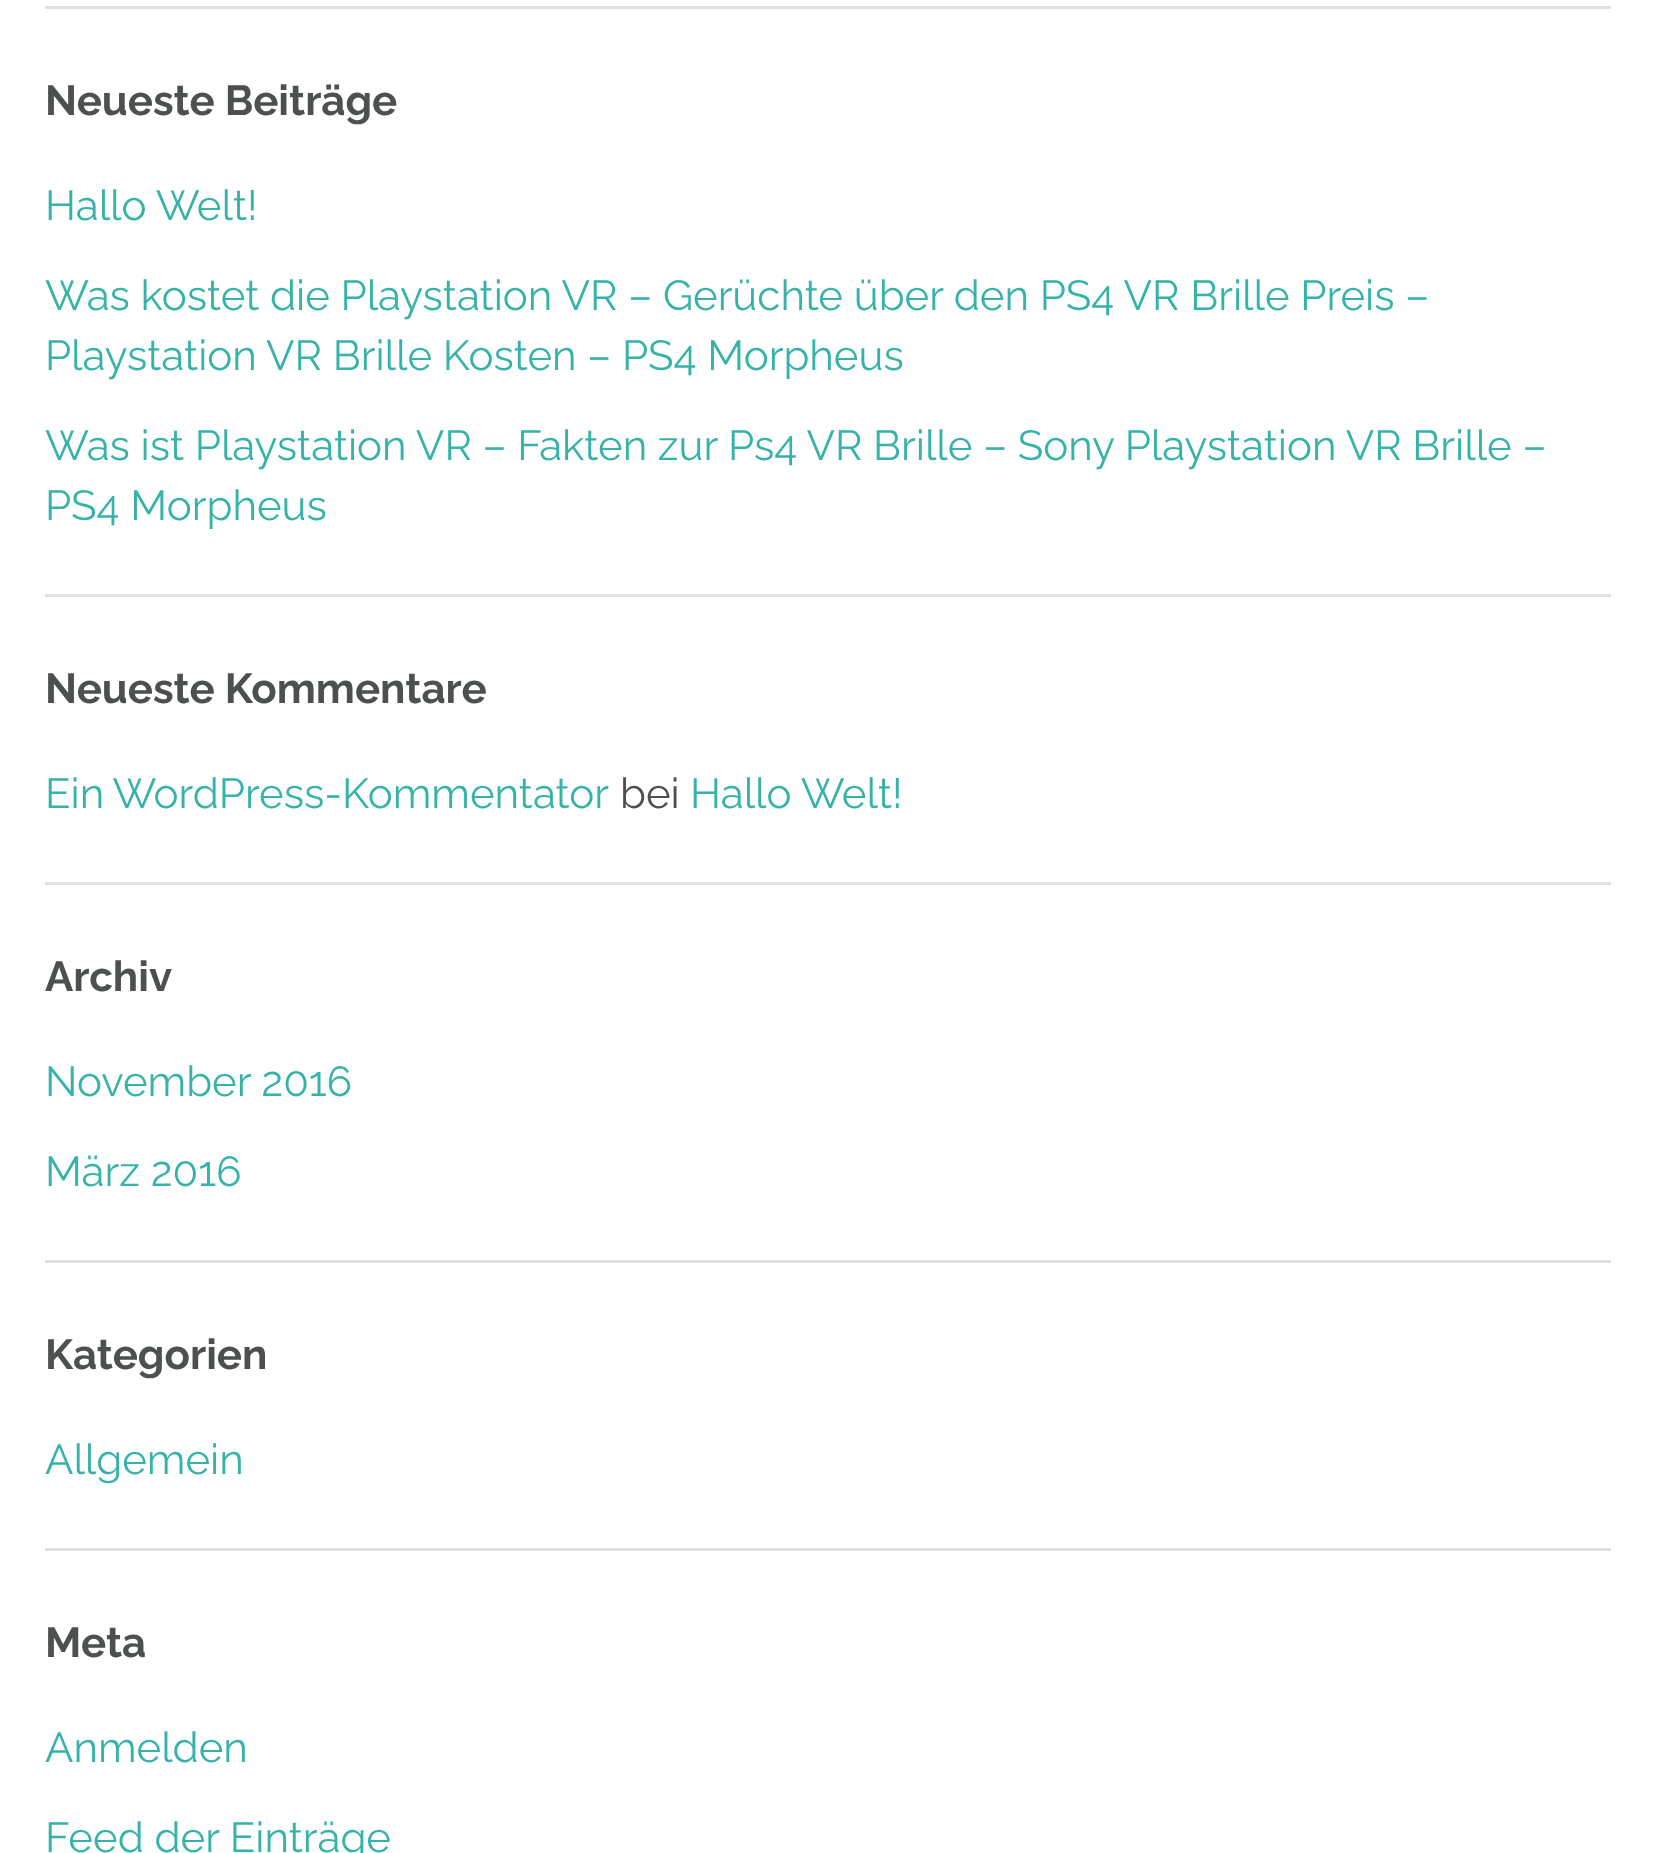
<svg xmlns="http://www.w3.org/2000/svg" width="1656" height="1853">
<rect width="100%" height="100%" fill="#fff"/>
<rect x="45" y="6" width="1566" height="3" fill="#e1e1e1"/>
<rect x="45" y="594" width="1566" height="3" fill="#e1e1e1"/>
<text x="45" y="115" style="font-family:Raleway;font-size:42px;font-weight:bold;fill:#4d5051">Neueste Beiträge</text>
<text x="45" y="220" style="font-family:Raleway;font-size:42px;fill:#36b3a8">Hallo Welt!</text>
<text x="45" y="310" style="font-family:Raleway;font-size:42px;fill:#36b3a8">Was kostet die Playstation VR – Gerüchte über den PS4 VR Brille Preis –</text>
<text x="45" y="370" style="font-family:Raleway;font-size:42px;fill:#36b3a8">Playstation VR Brille Kosten – PS4 Morpheus</text>
<text x="45" y="460" style="font-family:Raleway;font-size:42px;fill:#36b3a8">Was ist Playstation VR – Fakten zur Ps4 VR Brille – Sony Playstation VR Brille –</text>
<text x="45" y="520" style="font-family:Raleway;font-size:42px;fill:#36b3a8">PS4 Morpheus</text>
<rect x="45" y="882" width="1566" height="3" fill="#e1e1e1"/>
<text x="45" y="703" style="font-family:Raleway;font-size:42px;font-weight:bold;fill:#4d5051">Neueste Kommentare</text>
<text x="45" y="808" word-spacing="-1" style="font-family:Raleway;font-size:42px;fill:#36b3a8">Ein WordPress-Kommentator</text>
<text x="620" y="808" style="font-family:Raleway;font-size:42px;fill:#4d5051">bei</text>
<text x="690" y="808" style="font-family:Raleway;font-size:42px;fill:#36b3a8">Hallo Welt!</text>
<rect x="45" y="1260" width="1566" height="3" fill="#e1e1e1"/>
<text x="45" y="991" style="font-family:Raleway;font-size:42px;font-weight:bold;fill:#4d5051">Archiv</text>
<text x="45" y="1096" style="font-family:Raleway;font-size:42px;fill:#36b3a8">November 2016</text>
<text x="45" y="1186" style="font-family:Raleway;font-size:42px;fill:#36b3a8">März 2016</text>
<rect x="45" y="1548" width="1566" height="3" fill="#e1e1e1"/>
<text x="45" y="1369" style="font-family:Raleway;font-size:42px;font-weight:bold;fill:#4d5051">Kategorien</text>
<text x="45" y="1474" style="font-family:Raleway;font-size:42px;fill:#36b3a8">Allgemein</text>
<text x="45" y="1657" style="font-family:Raleway;font-size:42px;font-weight:bold;fill:#4d5051">Meta</text>
<text x="45" y="1762" style="font-family:Raleway;font-size:42px;fill:#36b3a8">Anmelden</text>
<text x="45" y="1852" style="font-family:Raleway;font-size:42px;fill:#36b3a8">Feed der Einträge</text>
</svg>
